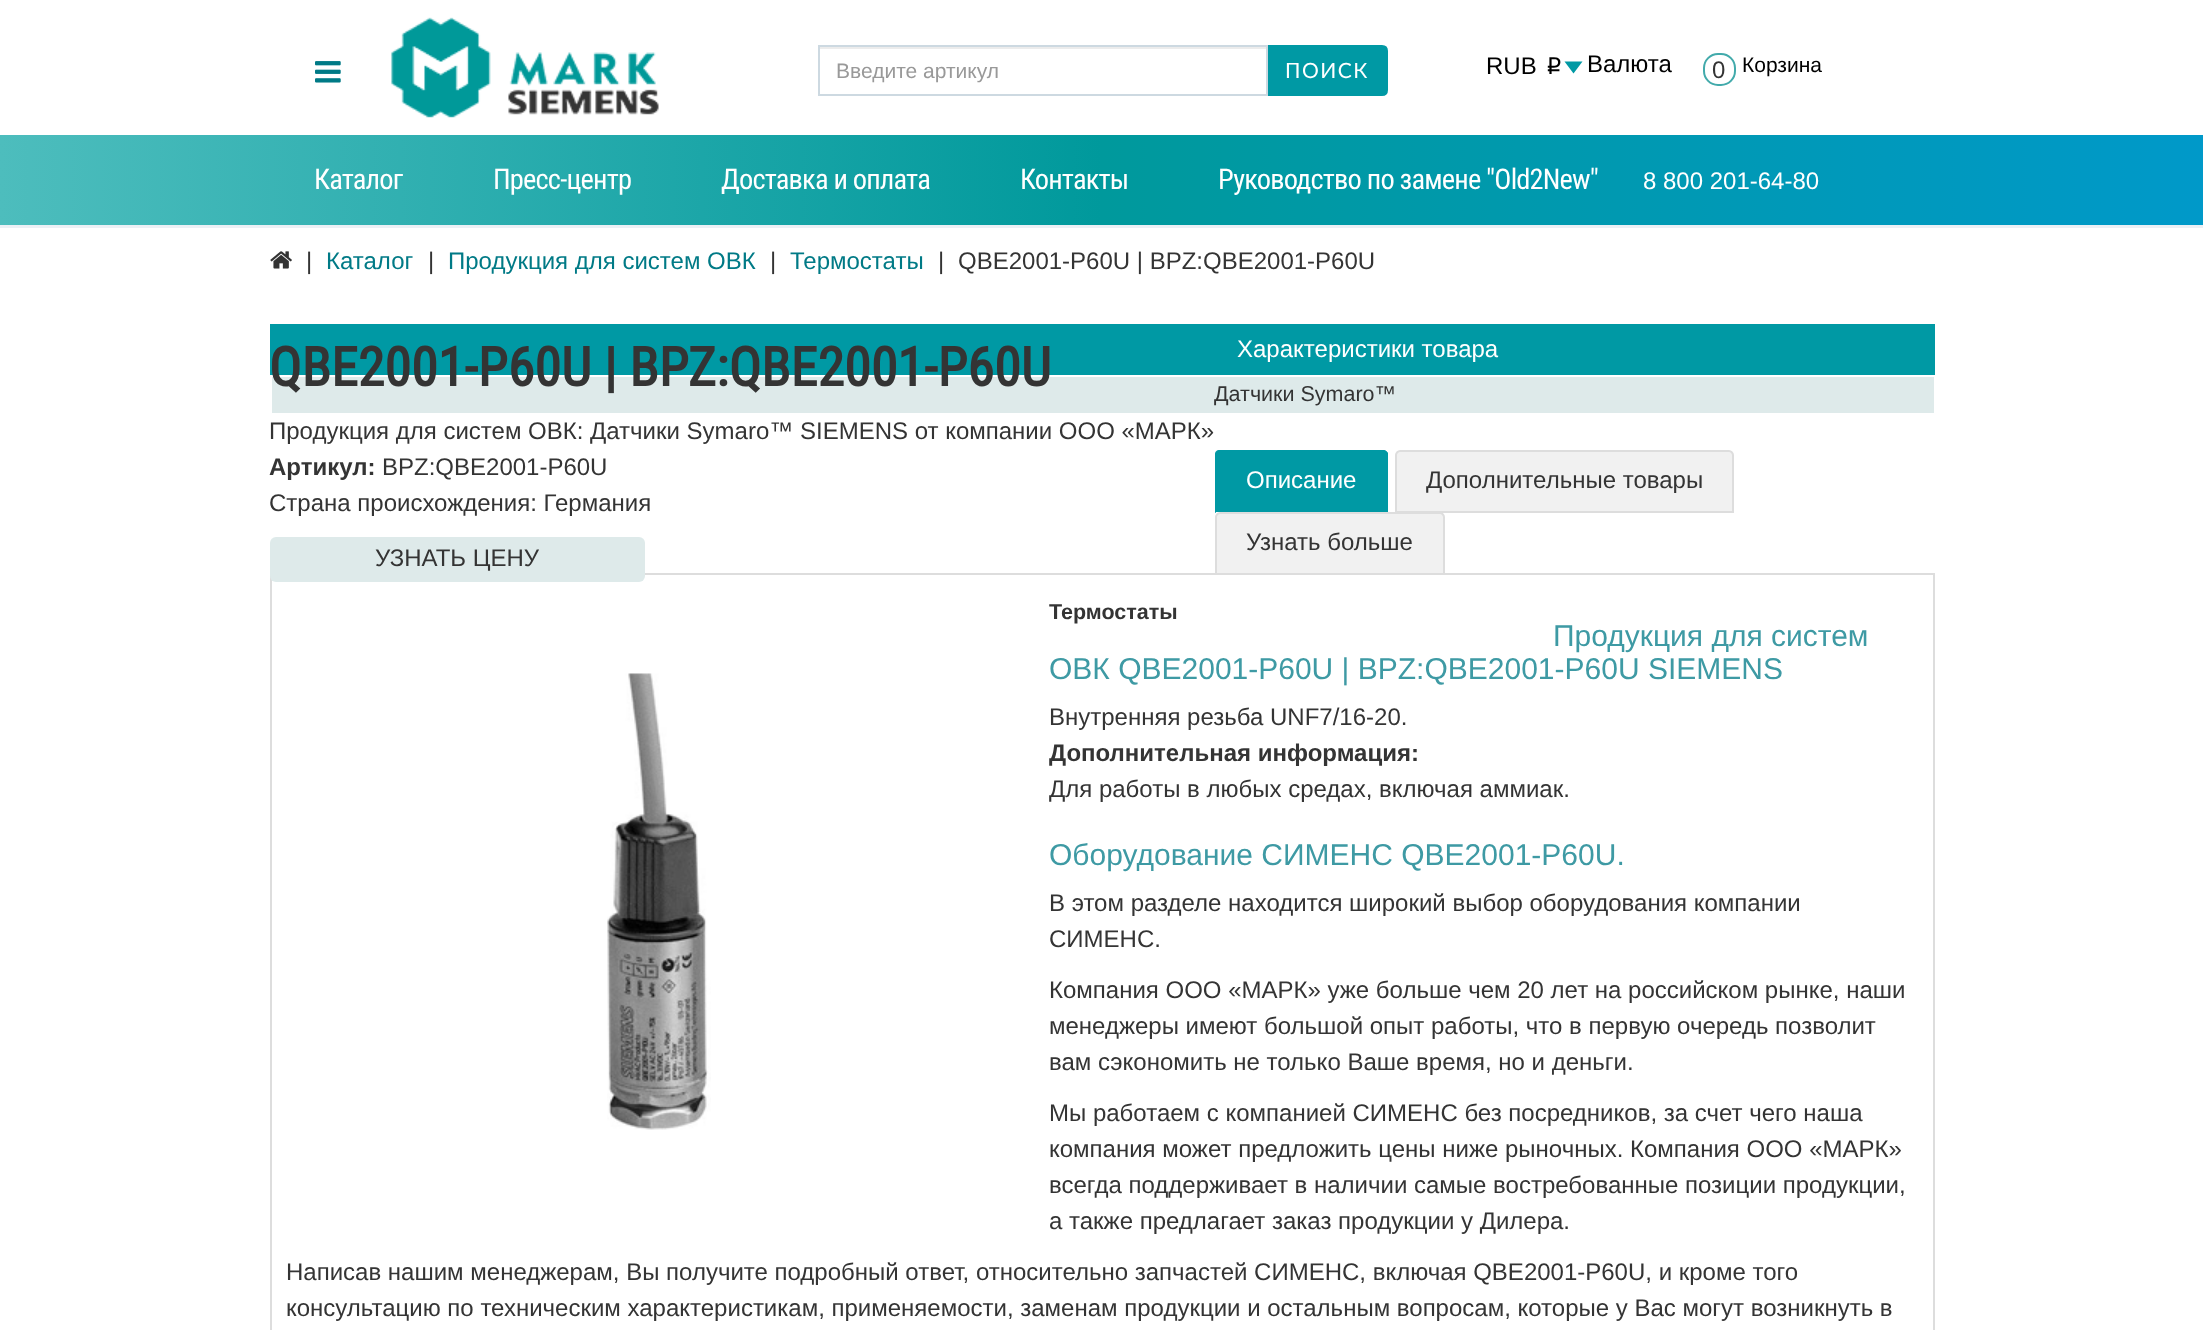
<svg xmlns="http://www.w3.org/2000/svg" width="2203" height="1330">
<defs>
<linearGradient id="g1" gradientUnits="userSpaceOnUse" x1="0" y1="180" x2="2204" y2="180"><stop offset="0" stop-color="#4dbdbd"/><stop offset="0.5" stop-color="#00999c"/><stop offset="1" stop-color="#0099c9"/></linearGradient>
</defs>
<rect width="100%" height="100%" fill="#fff"/>
<image x="315" y="61" width="26" height="22" href="media/1.png"/>
<image x="391" y="17" width="268" height="101" href="media/2.png"/>
<rect x="819" y="47" width="447" height="2" fill="#ececec"/>
<path d="M1267 46h115c3 0 5 2 5 5v39c0 3-2 5-5 5h-115z" fill="#0099a4" stroke="#0099a4" stroke-width="2"/>
<rect x="819" y="46" width="448" height="49" fill="none" stroke="#cdd9e1" stroke-width="2"/>
<text x="836" y="78" style="font-family:Liberation Sans;font-size:21px;fill:#999">Введите артикул</text>
<text x="1285" y="78" style="font-family:Lato;font-size:21px;letter-spacing:1.5px;fill:#fff">ПОИСК</text>
<text x="1486" y="74" style="font-family:Liberation Sans;font-size:24px;fill:#000">RUB</text>
<text x="1543" y="74" style="font-family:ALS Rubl;font-size:24px;fill:#000">p</text>
<path d="M1564.5 61.5h18l-9 12z" fill="#0099a4"/>
<text x="1587" y="72" style="font-family:Liberation Sans;font-size:24px;fill:#000">Валюта</text>
<rect x="1704" y="54" width="31" height="31" rx="14" fill="none" stroke="#42aaab" stroke-width="2"/>
<text x="1712" y="78" style="font-family:Liberation Sans;font-size:24px;fill:#343434">0</text>
<text x="1742" y="72" style="font-family:Liberation Sans;font-size:21px;fill:#000">Корзина</text>
<rect y="135" width="2203" height="90" fill="url(#g1)"/>
<rect y="225" width="2203" height="3" fill="#ebf0f5"/>
<text x="314" y="189" style="font-family:Roboto Condensed;font-size:28.5px;letter-spacing:-0.85px;fill:#fff">Каталог</text>
<text x="493" y="189" style="font-family:Roboto Condensed;font-size:28.5px;letter-spacing:-0.85px;fill:#fff">Пресс-центр</text>
<text x="721" y="189" style="font-family:Roboto Condensed;font-size:28.5px;letter-spacing:-0.85px;fill:#fff">Доставка и оплата</text>
<text x="1020" y="189" style="font-family:Roboto Condensed;font-size:28.5px;letter-spacing:-0.85px;fill:#fff">Контакты</text>
<text x="1218" y="189" style="font-family:Roboto Condensed;font-size:28.5px;letter-spacing:-0.85px;fill:#fff">Руководство по замене "Old2New"</text>
<text x="1643" y="189" style="font-family:Liberation Sans;font-size:24px;fill:#fff">8 800 201-64-80</text>
<image x="270" y="251" width="22" height="18" href="media/3.png"/>
<text x="306" y="269" style="font-family:Liberation Sans;font-size:24px;fill:#343434">|</text>
<text x="326" y="269" style="font-family:Liberation Sans;font-size:24px;fill:#007a86">Каталог</text>
<text x="428" y="269" style="font-family:Liberation Sans;font-size:24px;fill:#343434">|</text>
<text x="448" y="269" style="font-family:Liberation Sans;font-size:24px;fill:#007a86">Продукция для систем ОВК</text>
<text x="770" y="269" style="font-family:Liberation Sans;font-size:24px;fill:#343434">|</text>
<text x="790" y="269" style="font-family:Liberation Sans;font-size:24px;fill:#007a86">Термостаты</text>
<text x="938" y="269" style="font-family:Liberation Sans;font-size:24px;fill:#343434">|</text>
<text x="958" y="269" style="font-family:Liberation Sans;font-size:24px;fill:#343434">QBE2001-P60U | BPZ:QBE2001-P60U</text>
<rect x="270" y="324" width="1665" height="51" fill="#0099a4"/>
<rect x="272" y="377" width="1662" height="36" fill="#deeaea"/>
<text x="269" y="386" style="font-family:Roboto Condensed;font-size:54px;font-weight:bold;fill:#343434">QBE2001-P60U | BPZ:QBE2001-P60U</text>
<text x="269" y="439" style="font-family:Liberation Sans;font-size:24px;fill:#343434">Продукция для систем ОВК: Датчики Symaro™ SIEMENS от компании ООО «МАРК»</text>
<text x="269" y="475" style="font-family:Liberation Sans;font-size:24px;font-weight:bold;fill:#343434">Артикул:</text>
<text x="382" y="475" style="font-family:Liberation Sans;font-size:24px;fill:#343434">BPZ:QBE2001-P60U</text>
<text x="269" y="511" style="font-family:Liberation Sans;font-size:24px;fill:#343434">Страна происхождения: Германия</text>
<rect x="271" y="574" width="1663" height="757" fill="none" stroke="#ddd" stroke-width="2"/>
<rect x="270" y="537" width="375" height="45" rx="6" fill="#deeaea"/>
<text x="375" y="566" style="font-family:Liberation Sans;font-size:24px;fill:#343434">УЗНАТЬ ЦЕНУ</text>
<image x="607" y="673" width="104" height="457" href="media/4.png"/>
<text x="1237" y="357" style="font-family:Liberation Sans;font-size:24px;fill:#fff">Характеристики товара</text>
<text x="1214" y="401" style="font-family:Liberation Sans;font-size:21.5px;fill:#343434">Датчики Symaro™</text>
<text x="1049" y="619" style="font-family:Liberation Sans;font-size:21.5px;font-weight:bold;fill:#343434">Термостаты</text>
<path d="M1220 450h163c3 0 5 2 5 5v58h-173v-58c0-3 2-5 5-5z" fill="#0099a4"/>
<path d="M1220 450c-2 0-3 1-4 1l2 2l2-1h163h2l1-1l-3-1z" fill="#0099a4"/>
<path d="M1388 453v60l-2-1v-58l-1-2l1-1z" fill="#0099a4"/>
<path d="M1388 513l-2-1h-170l-1 1z" fill="#fff"/>
<path d="M1215 513l1-1v-58l2-1l-2-2l-1 3z" fill="#0099a4"/>
<text x="1246" y="488" style="font-family:Liberation Sans;font-size:24px;fill:#fff">Описание</text>
<path d="M1400 451h329c2 0 4 2 4 4v57h-337v-57c0-2 2-4 4-4z" fill="#f1f1f1" stroke="#ddd" stroke-width="2"/>
<text x="1426" y="488" style="font-family:Liberation Sans;font-size:24px;fill:#343434">Дополнительные товары</text>
<path d="M1220 513h220c2 0 4 2 4 4v57h-228v-57c0-2 2-4 4-4z" fill="#f1f1f1" stroke="#ddd" stroke-width="2"/>
<text x="1246" y="550" style="font-family:Liberation Sans;font-size:24px;fill:#343434">Узнать больше</text>
<text x="1553" y="646" style="font-family:Liberation Sans;font-size:30px;fill:#3e9aa4">Продукция для систем</text>
<text x="1049" y="679" style="font-family:Liberation Sans;font-size:30px;fill:#3e9aa4">ОВК QBE2001-P60U | BPZ:QBE2001-P60U SIEMENS</text>
<text x="1049" y="725" style="font-family:Liberation Sans;font-size:24px;fill:#343434">Внутренняя резьба UNF7/16-20.</text>
<text x="1049" y="761" style="font-family:Liberation Sans;font-size:24px;font-weight:bold;fill:#343434">Дополнительная информация:</text>
<text x="1049" y="797" style="font-family:Liberation Sans;font-size:24px;fill:#343434">Для работы в любых средах, включая аммиак.</text>
<text x="1049" y="865" style="font-family:Liberation Sans;font-size:30px;fill:#3e9aa4">Оборудование СИМЕНС QBE2001-P60U.</text>
<text x="1049" y="911" style="font-family:Liberation Sans;font-size:24px;fill:#343434">В этом разделе находится широкий выбор оборудования компании</text>
<text x="1049" y="947" style="font-family:Liberation Sans;font-size:24px;fill:#343434">СИМЕНС.</text>
<text x="1049" y="998" style="font-family:Liberation Sans;font-size:24px;fill:#343434">Компания ООО «МАРК» уже больше чем 20 лет на российском рынке, наши</text>
<text x="1049" y="1034" style="font-family:Liberation Sans;font-size:24px;fill:#343434">менеджеры имеют большой опыт работы, что в первую очередь позволит</text>
<text x="1049" y="1070" style="font-family:Liberation Sans;font-size:24px;fill:#343434">вам сэкономить не только Ваше время, но и деньги.</text>
<text x="1049" y="1121" style="font-family:Liberation Sans;font-size:24px;fill:#343434">Мы работаем с компанией СИМЕНС без посредников, за счет чего наша</text>
<text x="1049" y="1157" style="font-family:Liberation Sans;font-size:24px;fill:#343434">компания может предложить цены ниже рыночных. Компания ООО «МАРК»</text>
<text x="1049" y="1193" style="font-family:Liberation Sans;font-size:24px;fill:#343434">всегда поддерживает в наличии самые востребованные позиции продукции,</text>
<text x="1049" y="1229" style="font-family:Liberation Sans;font-size:24px;fill:#343434">а также предлагает заказ продукции у Дилера.</text>
<text x="286" y="1280" style="font-family:Liberation Sans;font-size:24px;fill:#343434">Написав нашим менеджерам, Вы получите подробный ответ, относительно запчастей СИМЕНС, включая QBE2001-P60U, и кроме того</text>
<text x="286" y="1316" style="font-family:Liberation Sans;font-size:24px;fill:#343434">консультацию по техническим характеристикам, применяемости, заменам продукции и остальным вопросам, которые у Вас могут возникнуть в</text>
</svg>
